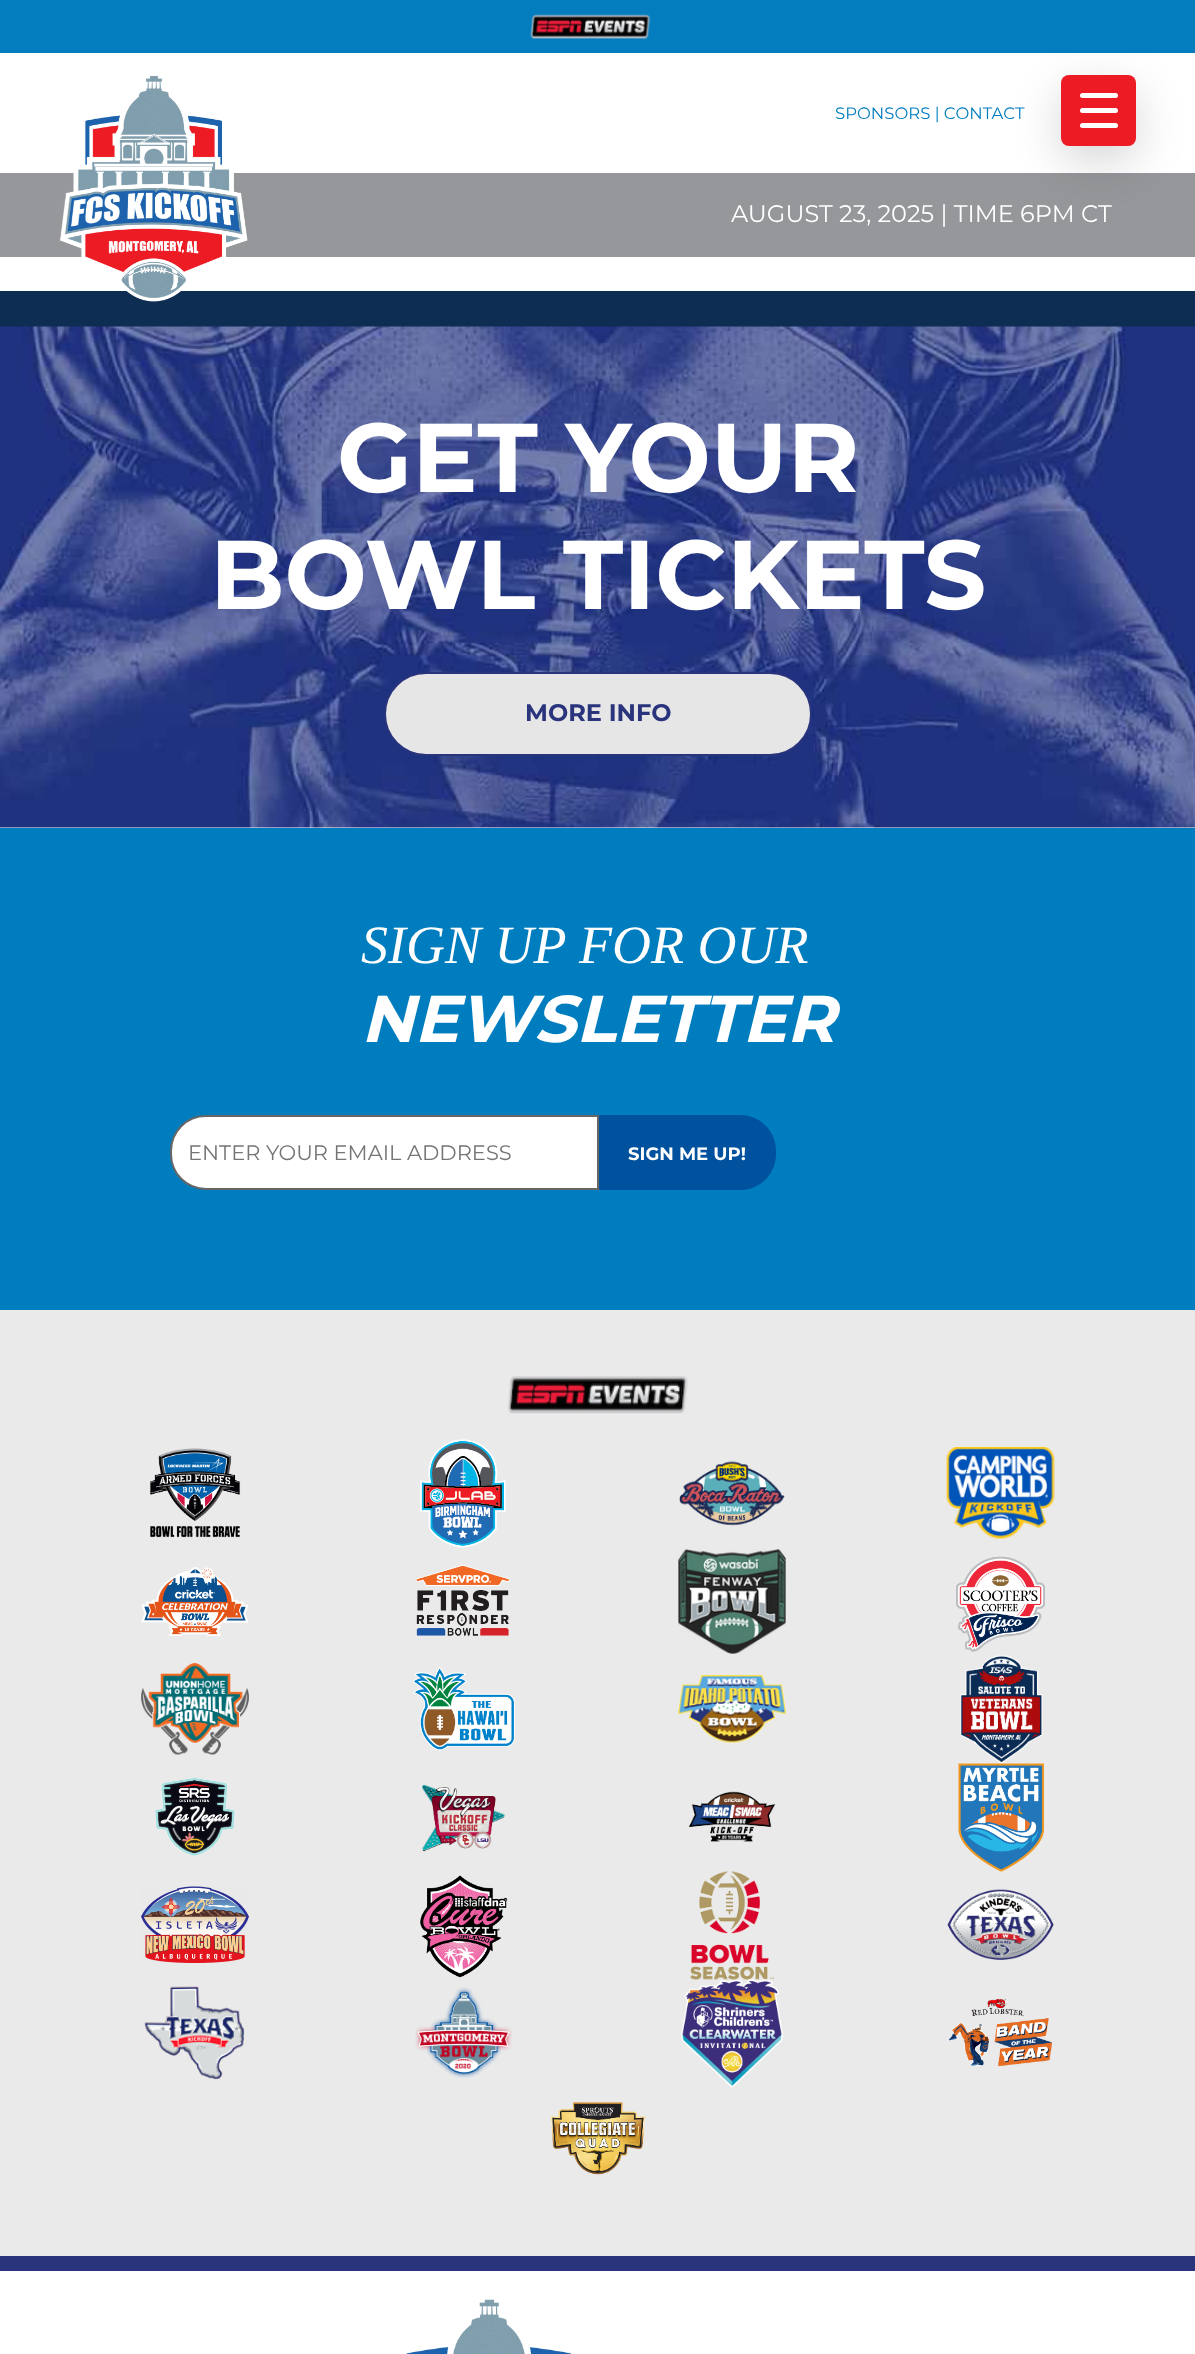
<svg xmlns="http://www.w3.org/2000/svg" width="1195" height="2354">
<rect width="100%" height="100%" fill="#fff"/>
<rect y="173" width="1195" height="84" fill="#95979a"/>
<rect x="1061" y="90" width="75" height="71" rx="8" fill="#00000029" filter="blur(22.5px)"/>
<rect width="1195" height="53" fill="#047dbf"/>
<image x="530" y="14" width="121" height="25" href="media/1.png"/>
<rect y="291" width="1195" height="36" fill="#0e2d52"/>
<image x="59" y="76" width="189" height="226" href="media/2.png"/>
<text x="835" y="119" style="font-family:Montserrat;font-size:16.5px;fill:#007dbf">SPONSORS | CONTACT</text>
<rect x="1061" y="75" width="75" height="71" rx="8" fill="#ed1c24"/>
<rect x="1080" y="108" width="38" height="5" rx="2.5" fill="#fff"/>
<rect x="1080" y="93" width="38" height="5" rx="2.5" fill="#fff"/>
<rect x="1080" y="123" width="38" height="5" rx="2.5" fill="#fff"/>
<text x="731" y="222" style="font-family:Montserrat;font-size:24px;fill:#fff">AUGUST 23, 2025 | TIME 6PM CT</text>
<image x="0" y="326" width="1195" height="502" href="media/3.png"/>
<text x="337" y="492" style="font-family:Montserrat;font-size:97.5px;font-weight:bold;fill:#fff">GET YOUR</text>
<text x="210" y="609" style="font-family:Montserrat;font-size:97.5px;font-weight:bold;fill:#fff">BOWL TICKETS</text>
<rect x="385" y="673" width="426" height="82" rx="41" fill="#e6e6e6" stroke="#29347c" stroke-width="2"/>
<text x="525" y="721" style="font-family:Montserrat;font-size:24px;font-weight:bold;fill:#29347c">MORE INFO</text>
<rect y="828" width="1195" height="482" fill="#007dbf"/>
<text x="361" y="963" style="font-family:Liberation Serif;font-size:54px;font-style:italic;fill:#fff">SIGN UP FOR OUR</text>
<text x="361" y="1042" style="font-family:Montserrat;font-size:66px;font-weight:bold;font-style:italic;fill:#fff">NEWSLETTER</text>
<path d="M206 1116h392v73h-392c-19.5 0-35-15.5-35-35v-3c0-19.5 15.5-35 35-35z" fill="#fff" stroke="#666" stroke-width="2"/>
<text x="188" y="1160" style="font-family:Montserrat;font-size:21px;fill:#757575">ENTER YOUR EMAIL ADDRESS</text>
<path d="M599 1115h141c20 0 36 16 36 36v3c0 20-16 36-36 36h-141z" fill="#00519e"/>
<text x="628" y="1160" style="font-family:Montserrat;font-size:18px;font-weight:bold;fill:#fff">SIGN ME UP!</text>
<rect y="1310" width="1195" height="946" fill="#eaeaea"/>
<rect y="2256" width="1195" height="15" fill="#29347c"/>
<image x="508" y="1376" width="180" height="38" href="media/4.png"/>
<image x="150" y="1448" width="91" height="90" href="media/5.png"/>
<image x="420" y="1439" width="86" height="109" href="media/6.png"/>
<image x="679" y="1461" width="106" height="65" href="media/7.png"/>
<image x="946" y="1447" width="109" height="92" href="media/8.png"/>
<image x="141" y="1567" width="108" height="69" href="media/9.png"/>
<image x="416" y="1565" width="94" height="71" href="media/10.png"/>
<image x="678" y="1549" width="108" height="105" href="media/11.png"/>
<image x="956" y="1556" width="89" height="96" href="media/12.png"/>
<image x="141" y="1663" width="108" height="92" href="media/13.png"/>
<image x="412" y="1667" width="103" height="84" href="media/14.png"/>
<image x="678" y="1675" width="108" height="68" href="media/15.png"/>
<image x="960" y="1655" width="83" height="109" href="media/16.png"/>
<image x="155" y="1778" width="80" height="78" href="media/17.png"/>
<image x="422" y="1784" width="83" height="68" href="media/18.png"/>
<image x="688" y="1791" width="88" height="51" href="media/19.png"/>
<image x="958" y="1763" width="86" height="109" href="media/20.png"/>
<image x="141" y="1886" width="108" height="77" href="media/21.png"/>
<image x="420" y="1875" width="88" height="103" href="media/22.png"/>
<image x="690" y="1871" width="84" height="109" href="media/23.png"/>
<image x="947" y="1889" width="107" height="71" href="media/24.png"/>
<image x="144" y="1986" width="101" height="94" href="media/25.png"/>
<image x="415" y="1987" width="97" height="91" href="media/26.png"/>
<image x="681" y="1979" width="102" height="109" href="media/27.png"/>
<image x="948" y="1998" width="105" height="69" href="media/28.png"/>
<image x="550" y="2102" width="96" height="73" href="media/29.png"/>
<image x="406" y="2299" width="165" height="55" href="media/30.png"/>
</svg>
